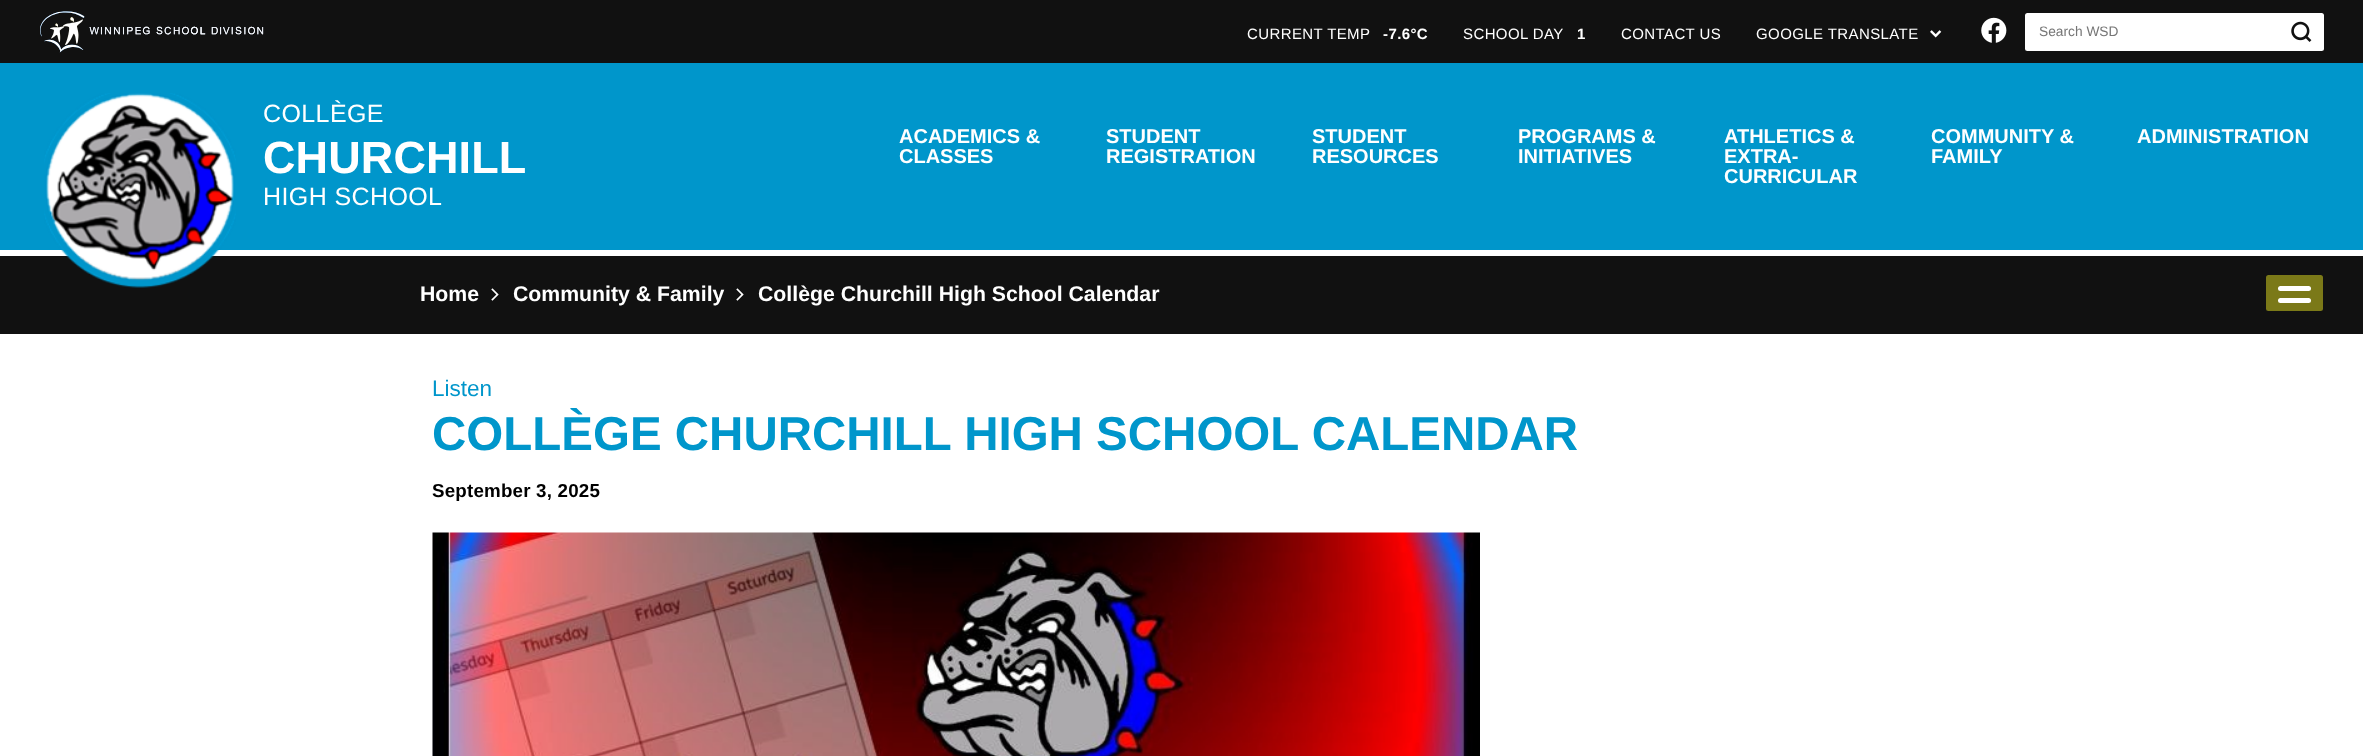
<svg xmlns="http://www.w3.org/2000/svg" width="2363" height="756">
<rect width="100%" height="100%" fill="#fff"/>
<rect width="2363" height="63" fill="#111"/>
<image x="40" y="11" width="224" height="42" href="media/1.png"/>
<text x="1247" y="39" style="font-family:Liberation Sans;font-size:15px;letter-spacing:0.4px;fill:#fff">CURRENT TEMP</text>
<text x="1383" y="39" style="font-family:Liberation Sans;font-size:15px;font-weight:bold;letter-spacing:0.4px;fill:#fff">-7.6°C</text>
<text x="1463" y="39" style="font-family:Liberation Sans;font-size:15px;letter-spacing:0.4px;fill:#fff">SCHOOL DAY</text>
<text x="1577" y="39" style="font-family:Liberation Sans;font-size:15px;font-weight:bold;letter-spacing:0.4px;fill:#fff">1</text>
<text x="1621" y="39" style="font-family:Liberation Sans;font-size:15px;letter-spacing:0.4px;fill:#fff">CONTACT US</text>
<text x="1756" y="39" style="font-family:Liberation Sans;font-size:15px;letter-spacing:0.4px;fill:#fff">GOOGLE TRANSLATE</text>
<image x="1930" y="30" width="12" height="8" href="media/2.png"/>
<image x="1981" y="17" width="26" height="26" href="media/3.png"/>
<rect x="2025" y="13" width="299" height="38" rx="2.5" fill="#fff"/>
<text x="2039" y="36" style="font-family:Liberation Sans;font-size:13.75px;fill:#767676">Search WSD</text>
<image x="2291" y="21" width="21" height="21" href="media/4.png"/>
<rect y="63" width="2363" height="187" fill="#0096cb"/>
<rect y="256" width="2363" height="78" fill="#111"/>
<image x="44" y="93" width="192" height="195" href="media/5.png"/>
<text x="263" y="122" style="font-family:Liberation Sans;font-size:25px;letter-spacing:0.4px;fill:#fff">COLLÈGE</text>
<text x="263" y="173" style="font-family:Liberation Sans;font-size:45px;font-weight:bold;letter-spacing:0.1px;fill:#fff">CHURCHILL</text>
<text x="263" y="205" style="font-family:Liberation Sans;font-size:25px;letter-spacing:0.4px;fill:#fff">HIGH SCHOOL</text>
<text x="899" y="143" style="font-family:Liberation Sans;font-size:20px;font-weight:bold;fill:#fff">ACADEMICS &amp;</text>
<text x="899" y="163" style="font-family:Liberation Sans;font-size:20px;font-weight:bold;fill:#fff">CLASSES</text>
<text x="1106" y="143" style="font-family:Liberation Sans;font-size:20px;font-weight:bold;fill:#fff">STUDENT</text>
<text x="1106" y="163" style="font-family:Liberation Sans;font-size:20px;font-weight:bold;fill:#fff">REGISTRATION</text>
<text x="1312" y="143" style="font-family:Liberation Sans;font-size:20px;font-weight:bold;fill:#fff">STUDENT</text>
<text x="1312" y="163" style="font-family:Liberation Sans;font-size:20px;font-weight:bold;fill:#fff">RESOURCES</text>
<text x="1518" y="143" style="font-family:Liberation Sans;font-size:20px;font-weight:bold;fill:#fff">PROGRAMS &amp;</text>
<text x="1518" y="163" style="font-family:Liberation Sans;font-size:20px;font-weight:bold;fill:#fff">INITIATIVES</text>
<text x="1724" y="143" style="font-family:Liberation Sans;font-size:20px;font-weight:bold;fill:#fff">ATHLETICS &amp;</text>
<text x="1724" y="163" style="font-family:Liberation Sans;font-size:20px;font-weight:bold;fill:#fff">EXTRA-</text>
<text x="1724" y="183" style="font-family:Liberation Sans;font-size:20px;font-weight:bold;fill:#fff">CURRICULAR</text>
<text x="1931" y="143" style="font-family:Liberation Sans;font-size:20px;font-weight:bold;fill:#fff">COMMUNITY &amp;</text>
<text x="1931" y="163" style="font-family:Liberation Sans;font-size:20px;font-weight:bold;fill:#fff">FAMILY</text>
<text x="2137" y="143" style="font-family:Liberation Sans;font-size:20px;font-weight:bold;fill:#fff">ADMINISTRATION</text>
<text x="420" y="301" style="font-family:Liberation Sans;font-size:21.25px;font-weight:bold;fill:#fff">Home</text>
<image x="491" y="288" width="8" height="13" href="media/6.png"/>
<text x="513" y="301" style="font-family:Liberation Sans;font-size:21.25px;font-weight:bold;fill:#fff">Community &amp; Family</text>
<image x="736" y="288" width="8" height="13" href="media/6.png"/>
<text x="758" y="301" style="font-family:Liberation Sans;font-size:21.25px;font-weight:bold;fill:#fff">Collège Churchill High School Calendar</text>
<rect x="2266" y="275" width="57" height="36" rx="2.5" fill="#7b7918"/>
<rect x="2278" y="286" width="33" height="5" rx="2.5" fill="#fff"/>
<rect x="2278" y="298" width="33" height="5" rx="2.5" fill="#fff"/>
<text x="432" y="396" style="font-family:Liberation Sans;font-size:22.5px;fill:#0096cb">Listen</text>
<text x="432" y="450" style="font-family:Liberation Sans;font-size:47.5px;font-weight:bold;fill:#0096cb">COLLÈGE CHURCHILL HIGH SCHOOL CALENDAR</text>
<text x="432" y="497" style="font-family:Liberation Sans;font-size:18.75px;font-weight:bold;letter-spacing:0.2px;fill:#000">September 3, 2025</text>
<image x="432" y="532" width="1048" height="224" href="media/7.png"/>
</svg>
